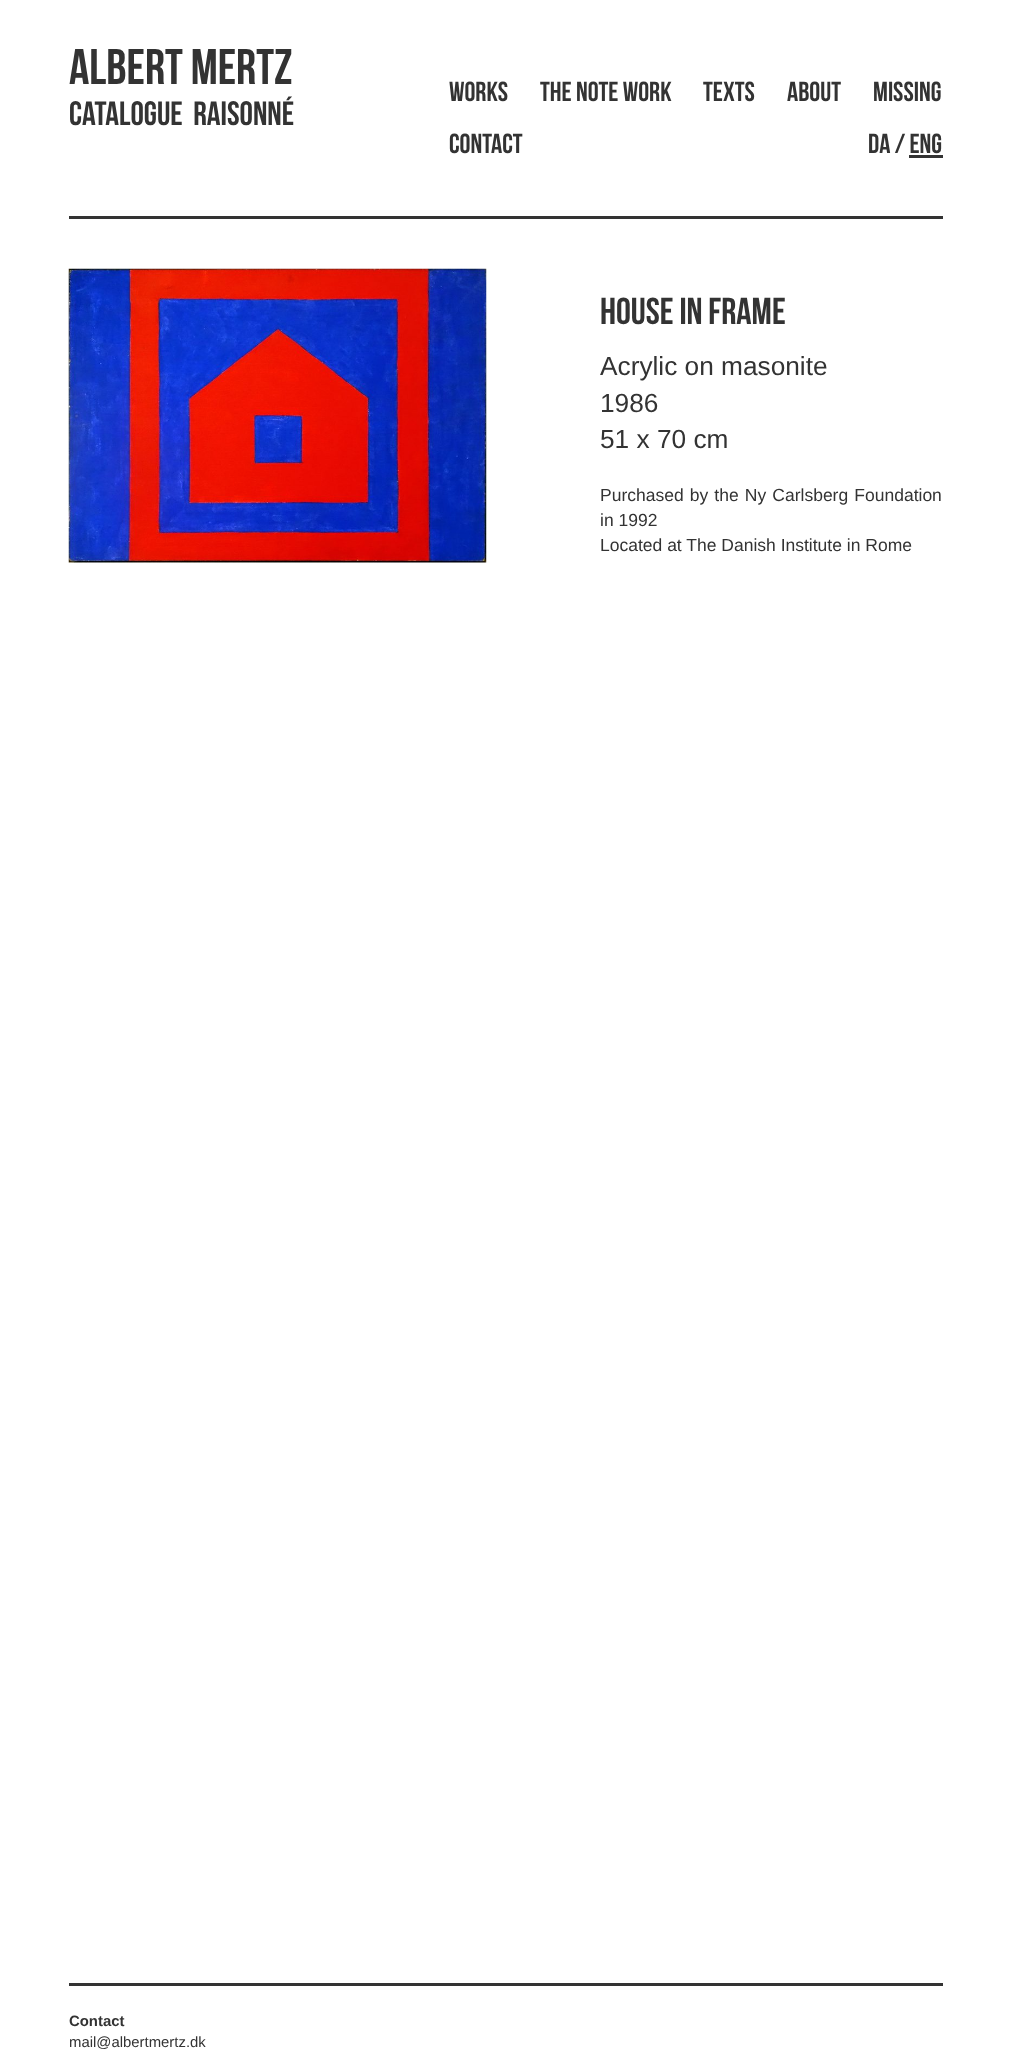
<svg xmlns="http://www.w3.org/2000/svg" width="1011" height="2065">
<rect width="100%" height="100%" fill="#fff"/>
<text x="69" y="84" style="font-family:Bebas Neue;font-size:50px;font-weight:bold;fill:#333">Albert Mertz</text>
<text x="69" y="125" style="font-family:Bebas Neue;font-size:33.75px;font-weight:bold;fill:#333" xml:space="preserve">Catalogue  Raisonné</text>
<text x="449" y="101" style="font-family:Bebas Neue;font-size:27.5px;font-weight:bold;fill:#333">Works</text>
<text x="540" y="101" style="font-family:Bebas Neue;font-size:27.5px;font-weight:bold;fill:#333">The Note Work</text>
<text x="703" y="101" style="font-family:Bebas Neue;font-size:27.5px;font-weight:bold;fill:#333">Texts</text>
<text x="787" y="101" style="font-family:Bebas Neue;font-size:27.5px;font-weight:bold;fill:#333">About</text>
<text x="873" y="101" style="font-family:Bebas Neue;font-size:27.5px;font-weight:bold;fill:#333">Missing</text>
<text x="449" y="153" style="font-family:Bebas Neue;font-size:27.5px;font-weight:bold;fill:#333">Contact</text>
<text x="868" y="153" style="font-family:Bebas Neue;font-size:27.5px;font-weight:bold;fill:#333">DA / ENG</text>
<rect x="909" y="155" width="34" height="3" fill="#333"/>
<rect x="69" y="216" width="874" height="3" fill="#333"/>
<image x="68" y="268" width="419" height="295" href="media/1.png"/>
<text x="600" y="324" style="font-family:Bebas Neue;font-size:37.5px;font-weight:bold;fill:#333">House in frame</text>
<text x="600" y="375" style="font-family:Liberation Sans;font-size:26.25px;fill:#333">Acrylic on masonite</text>
<text x="600" y="412" style="font-family:Liberation Sans;font-size:26.25px;fill:#333">1986</text>
<text x="600" y="448" style="font-family:Liberation Sans;font-size:26.25px;fill:#333">51 x 70 cm</text>
<text x="600" y="501" word-spacing="1.25" style="font-family:Liberation Sans;font-size:17.5px;fill:#333">Purchased by the Ny Carlsberg Foundation</text>
<text x="600" y="526" style="font-family:Liberation Sans;font-size:17.5px;fill:#333">in 1992</text>
<text x="600" y="551" style="font-family:Liberation Sans;font-size:17.5px;fill:#333">Located at The Danish Institute in Rome</text>
<rect x="69" y="1983" width="874" height="3" fill="#333"/>
<text x="69" y="2026" style="font-family:Liberation Sans;font-size:14.9px;font-weight:bold;fill:#333">Contact</text>
<text x="69" y="2047" style="font-family:Liberation Sans;font-size:14.9px;fill:#333">mail@albertmertz.dk</text>
</svg>
